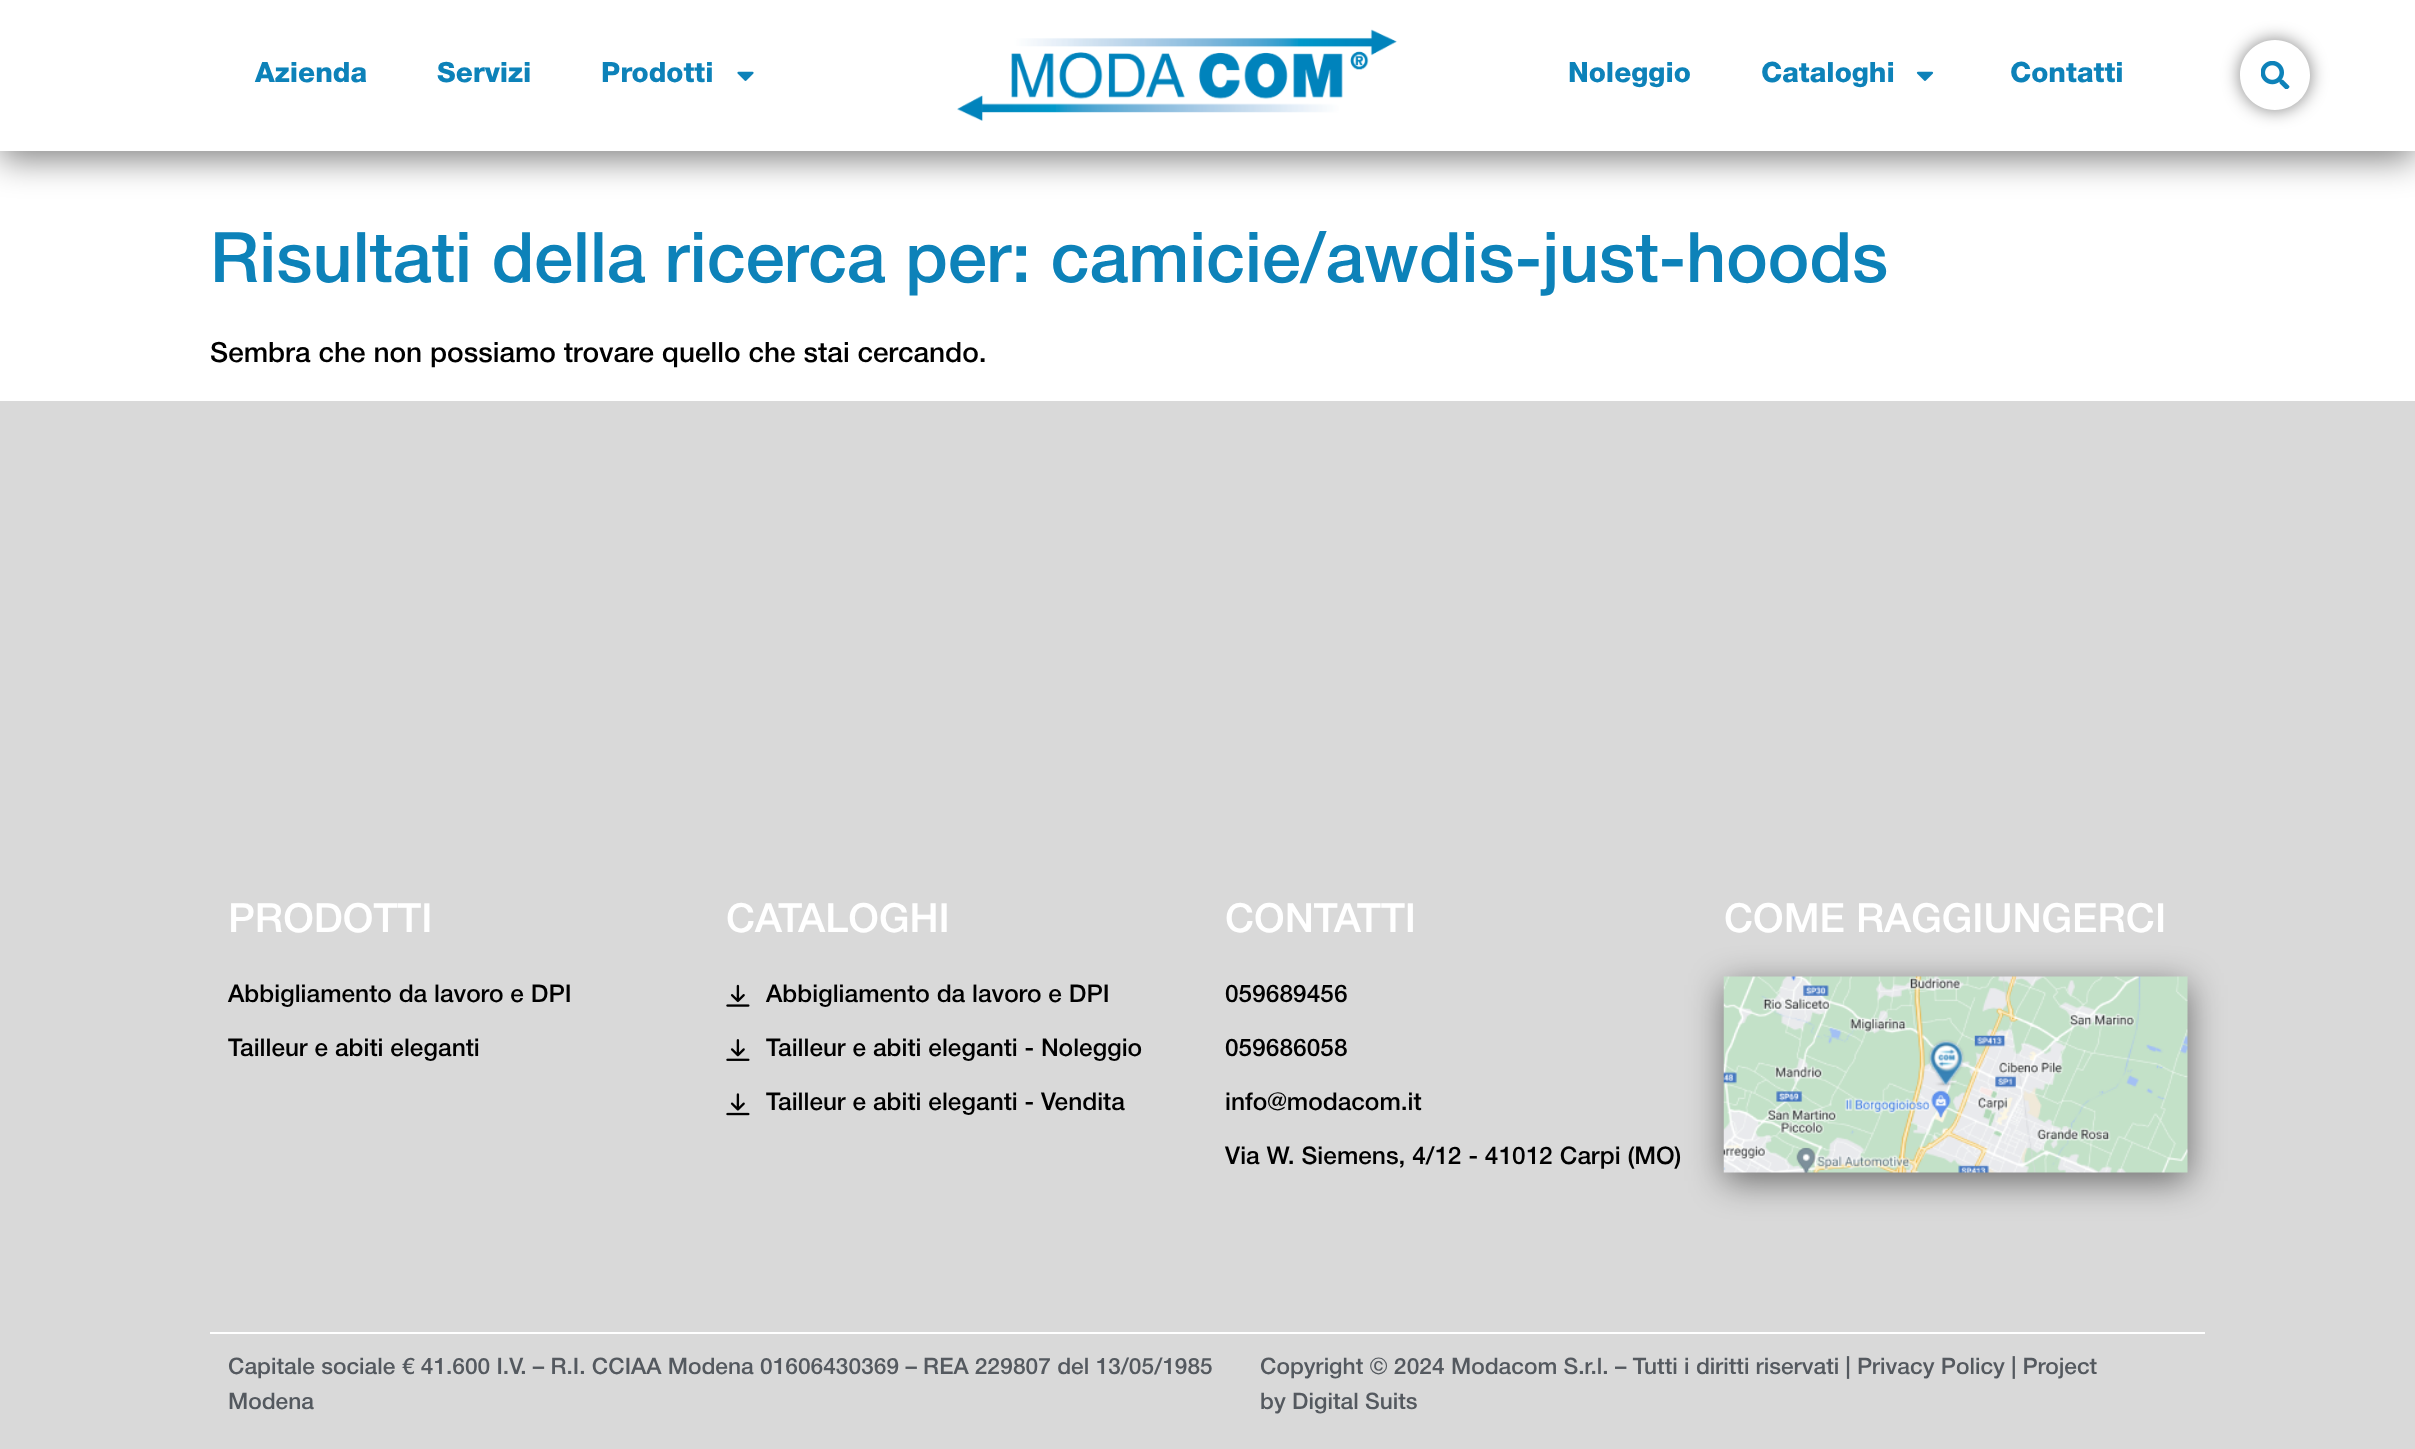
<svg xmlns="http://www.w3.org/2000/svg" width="2415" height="1449">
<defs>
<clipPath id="clip1"><path d="M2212 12h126v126h-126zm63 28c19.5 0 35 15.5 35 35c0 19.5-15.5 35-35 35c-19.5 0-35-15.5-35-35c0-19.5 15.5-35 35-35z" clip-rule="evenodd"/></clipPath>
</defs>
<rect width="100%" height="100%" fill="#fff"/>
<rect y="9" width="2415" height="150" fill="#00000080" filter="blur(17.5px)"/>
<rect width="2415" height="151" fill="#fff"/>
<text x="255" y="82" style="font-family:Helvetica Neue;font-size:28px;font-weight:900;fill:#0d82b9">Azienda</text>
<text x="437" y="82" style="font-family:Helvetica Neue;font-size:28px;font-weight:900;fill:#0d82b9">Servizi</text>
<text x="601" y="82" style="font-family:Helvetica Neue;font-size:28px;font-weight:900;fill:#0d82b9">Prodotti</text>
<image x="737" y="71" width="17" height="10" href="media/1.png"/>
<image x="957" y="29" width="440" height="92" href="media/2.png"/>
<text x="1568" y="82" style="font-family:Helvetica Neue;font-size:28px;font-weight:900;fill:#0d82b9">Noleggio</text>
<text x="1761" y="82" style="font-family:Helvetica Neue;font-size:28px;font-weight:900;fill:#0d82b9">Cataloghi</text>
<image x="1916" y="71" width="18" height="10" href="media/3.png"/>
<text x="2010" y="82" style="font-family:Helvetica Neue;font-size:28px;font-weight:900;fill:#0d82b9">Contatti</text>
<g clip-path="url(#clip1)">
<rect x="2240" y="40" width="70" height="70" rx="35" fill="#00000080" filter="blur(9px)"/>
</g>
<image x="2261" y="61" width="29" height="28" href="media/4.png"/>
<text x="210" y="282" style="font-family:Helvetica Neue;font-size:70px;font-weight:500;fill:#0d82b9">Risultati della ricerca per: camicie/awdis-just-hoods</text>
<text x="210" y="362" style="font-family:Helvetica Neue;font-size:28px;font-weight:500;fill:#000">Sembra che non possiamo trovare quello che stai cercando.</text>
<rect y="401" width="2415" height="1048" fill="#d9d9d9"/>
<text x="228" y="932" style="font-family:Helvetica Neue;font-size:40.25px;font-weight:500;fill:#fff">PRODOTTI</text>
<text x="228" y="1002" style="font-family:Helvetica Neue;font-size:24.5px;font-weight:500;fill:#000">Abbigliamento da lavoro e DPI</text>
<text x="228" y="1056" style="font-family:Helvetica Neue;font-size:24.5px;font-weight:500;fill:#000">Tailleur e abiti eleganti</text>
<text x="726" y="932" style="font-family:Helvetica Neue;font-size:40.25px;font-weight:500;fill:#fff">CATALOGHI</text>
<image x="726" y="984" width="24" height="23" href="media/5.png"/>
<text x="766" y="1002" style="font-family:Helvetica Neue;font-size:24.5px;font-weight:500;fill:#000">Abbigliamento da lavoro e DPI</text>
<image x="726" y="1039" width="24" height="22" href="media/6.png"/>
<text x="766" y="1056" style="font-family:Helvetica Neue;font-size:24.5px;font-weight:500;fill:#000">Tailleur e abiti eleganti - Noleggio</text>
<image x="726" y="1093" width="24" height="23" href="media/7.png"/>
<text x="766" y="1110" style="font-family:Helvetica Neue;font-size:24.5px;font-weight:500;fill:#000">Tailleur e abiti eleganti - Vendita</text>
<text x="1225" y="932" style="font-family:Helvetica Neue;font-size:40.25px;font-weight:500;fill:#fff">CONTATTI</text>
<text x="1225" y="1002" style="font-family:Helvetica Neue;font-size:24.5px;font-weight:500;fill:#000">059689456</text>
<text x="1225" y="1056" style="font-family:Helvetica Neue;font-size:24.5px;font-weight:500;fill:#000">059686058</text>
<text x="1225" y="1110" style="font-family:Helvetica Neue;font-size:24.5px;font-weight:500;fill:#000">info@modacom.it</text>
<text x="1225" y="1164" style="font-family:Helvetica Neue;font-size:24.5px;font-weight:500;fill:#000">Via W. Siemens, 4/12 - 41012 Carpi (MO)</text>
<text x="1724" y="932" style="font-family:Helvetica Neue;font-size:40.25px;font-weight:500;fill:#fff">COME RAGGIUNGERCI</text>
<rect x="1724" y="985" width="464" height="196" fill="#00000080" filter="blur(17.5px)"/>
<image x="1723" y="976" width="465" height="197" href="media/8.png"/>
<rect x="210" y="1332" width="1995" height="2" fill="#fff"/>
<text x="228" y="1374" style="font-family:Helvetica Neue;font-size:22.75px;font-weight:500;fill:#54595f">Capitale sociale € 41.600 I.V. – R.I. CCIAA Modena 01606430369 – REA 229807 del 13/05/1985</text>
<text x="228" y="1409" style="font-family:Helvetica Neue;font-size:22.75px;font-weight:500;fill:#54595f">Modena</text>
<text x="1260" y="1374" style="font-family:Helvetica Neue;font-size:22.75px;font-weight:500;fill:#54595f">Copyright © 2024 Modacom S.r.l. – Tutti i diritti riservati | Privacy Policy | Project</text>
<text x="1260" y="1409" style="font-family:Helvetica Neue;font-size:22.75px;font-weight:500;fill:#54595f">by Digital Suits</text>
</svg>
